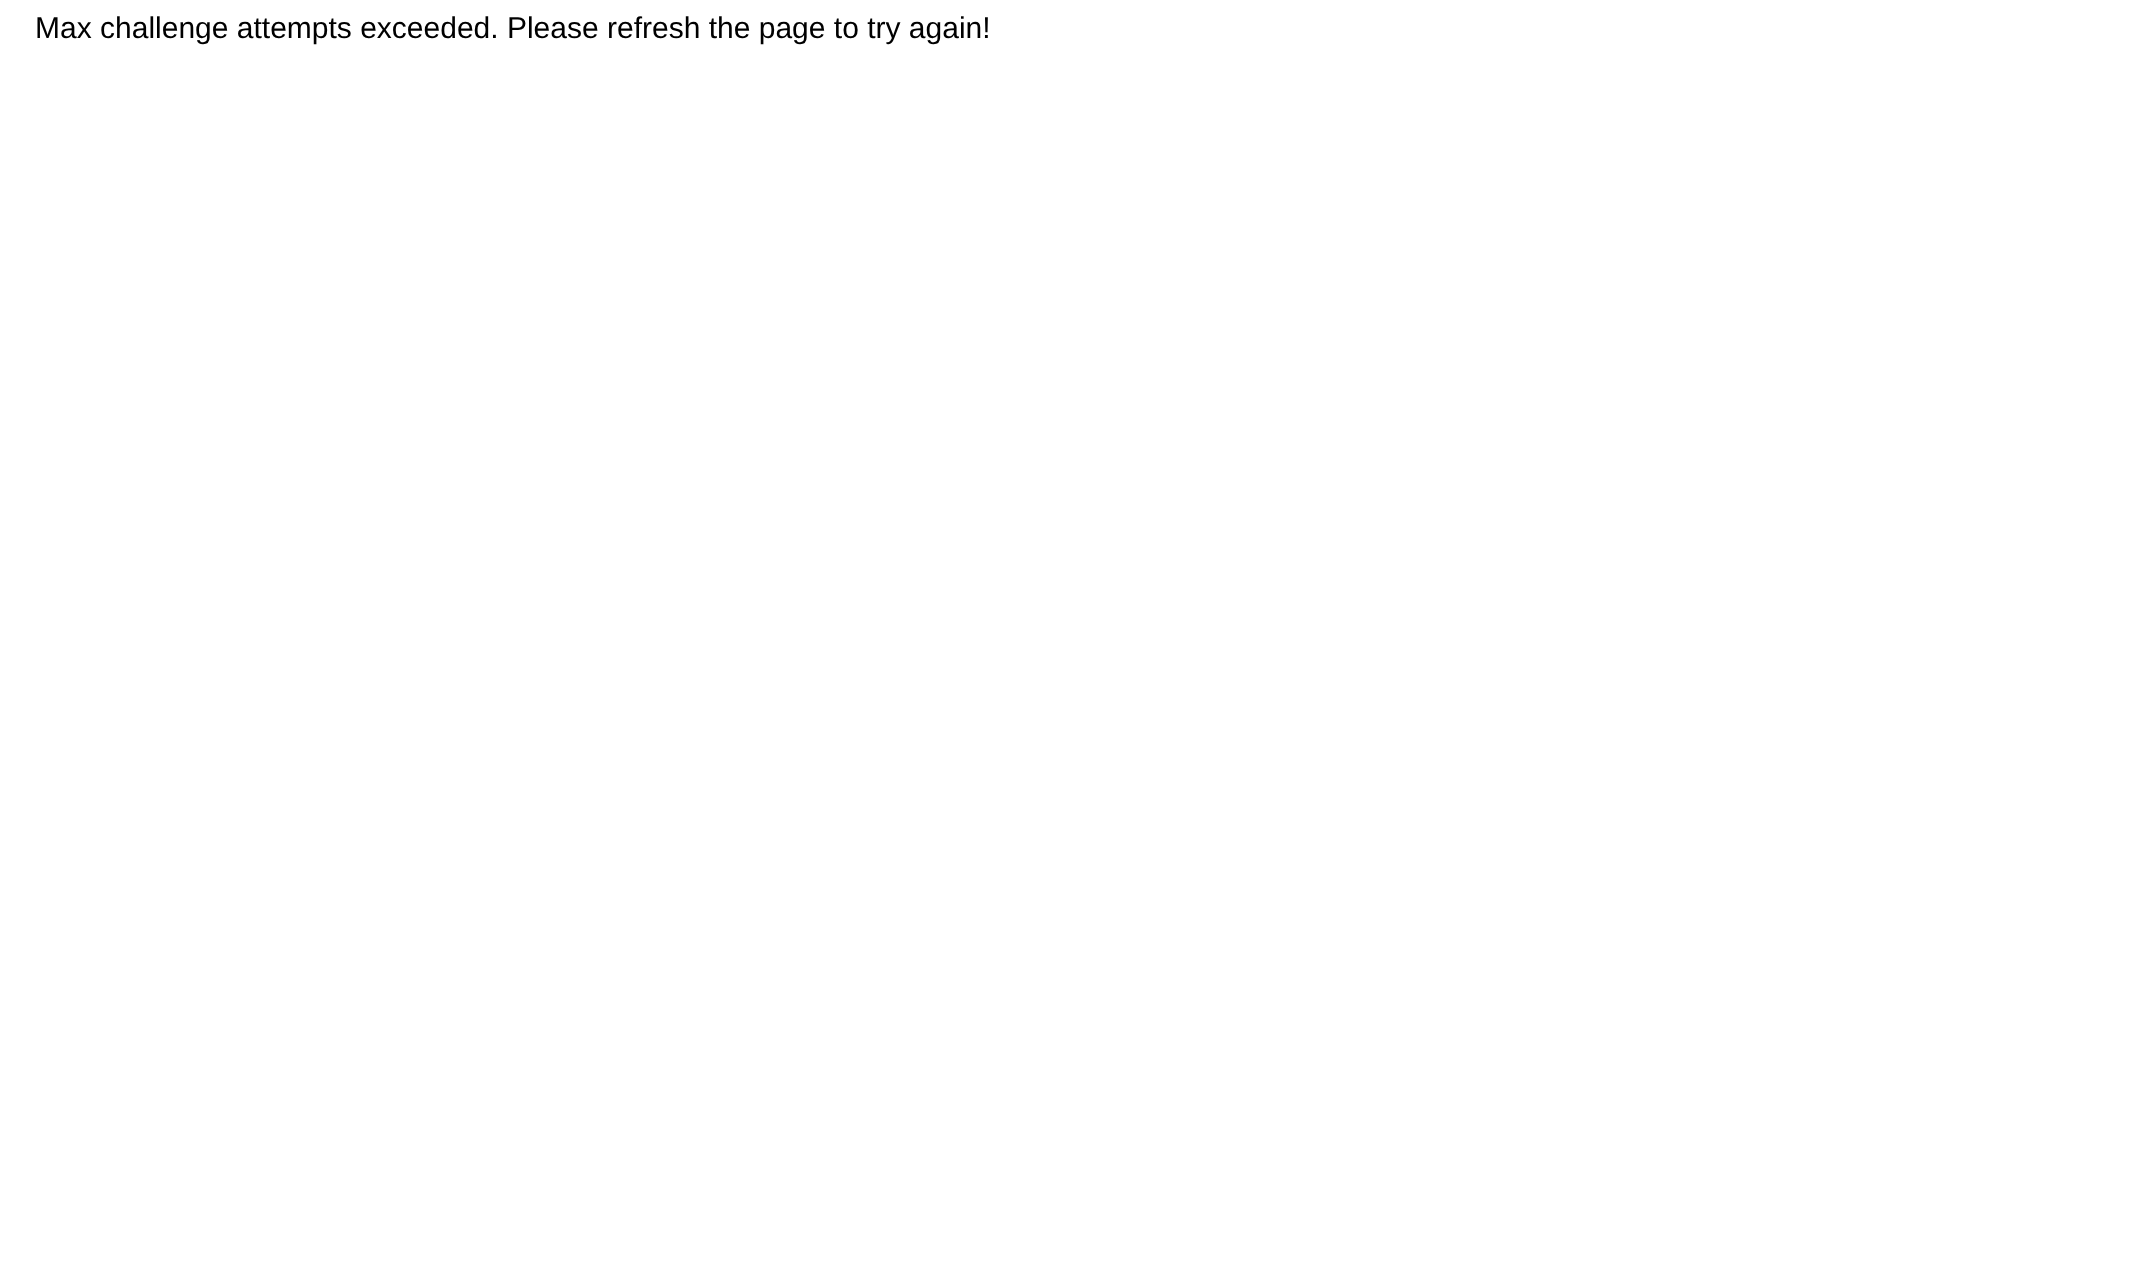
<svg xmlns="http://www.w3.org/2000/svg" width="2149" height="1285">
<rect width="100%" height="100%" fill="#fff"/>
<text x="35" y="38" style="font-family:Liberation Sans;font-size:30px;fill:#000">Max challenge attempts exceeded. Please refresh the page to try again!</text>
</svg>
